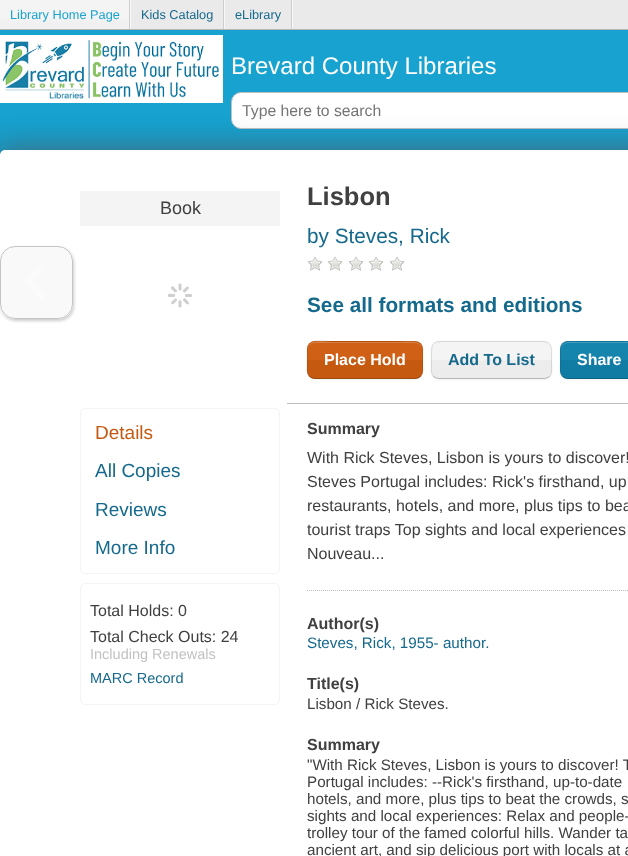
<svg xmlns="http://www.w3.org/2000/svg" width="628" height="856">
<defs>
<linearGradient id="g1" gradientUnits="userSpaceOnUse" x1="65" y1="0" x2="65" y2="29"><stop offset="0.6" stop-color="#f4f4f4"/><stop offset="0.8" stop-color="#f0f0f0"/></linearGradient>
<linearGradient id="g2" gradientUnits="userSpaceOnUse" x1="500" y1="30" x2="500" y2="200"><stop offset="0.5" stop-color="#17a2d0"/><stop offset="1" stop-color="#158fb8"/></linearGradient>
<clipPath id="clip1"><path d="M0 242h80v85h-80zm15 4h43c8.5 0 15 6.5 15 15v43c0 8.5-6.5 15-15 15h-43c-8.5 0-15-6.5-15-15v-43c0-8.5 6.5-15 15-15z" clip-rule="evenodd"/></clipPath>
<clipPath id="clip2"><rect x="307" y="341" width="116" height="38" rx="8"/></clipPath>
<linearGradient id="g3" gradientUnits="userSpaceOnUse" x1="365" y1="306" x2="365" y2="342"><stop offset="0.48" stop-color="#cf6015"/><stop offset="0.52" stop-color="#c5590f"/></linearGradient>
<linearGradient id="g4" gradientUnits="userSpaceOnUse" x1="365" y1="342" x2="365" y2="378"><stop offset="0.48" stop-color="#cf6015"/><stop offset="0.52" stop-color="#c5590f"/></linearGradient>
<linearGradient id="g5" gradientUnits="userSpaceOnUse" x1="365" y1="378" x2="365" y2="414"><stop offset="0.48" stop-color="#cf6015"/><stop offset="0.52" stop-color="#c5590f"/></linearGradient>
<clipPath id="clip3"><rect x="431" y="341" width="121" height="38" rx="8"/></clipPath>
<linearGradient id="g6" gradientUnits="userSpaceOnUse" x1="492" y1="306" x2="492" y2="342"><stop offset="0.48" stop-color="#f4f4f4"/><stop offset="0.52" stop-color="#edecec"/></linearGradient>
<linearGradient id="g7" gradientUnits="userSpaceOnUse" x1="492" y1="342" x2="492" y2="378"><stop offset="0.48" stop-color="#f4f4f4"/><stop offset="0.52" stop-color="#edecec"/></linearGradient>
<clipPath id="clip4"><rect x="560" y="341" width="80" height="38" rx="8"/></clipPath>
<linearGradient id="g8" gradientUnits="userSpaceOnUse" x1="600" y1="306" x2="600" y2="342"><stop offset="0.48" stop-color="#1685ad"/><stop offset="0.52" stop-color="#117ca3"/></linearGradient>
<linearGradient id="g9" gradientUnits="userSpaceOnUse" x1="600" y1="342" x2="600" y2="378"><stop offset="0.48" stop-color="#1685ad"/><stop offset="0.52" stop-color="#117ca3"/></linearGradient>
<linearGradient id="g10" gradientUnits="userSpaceOnUse" x1="600" y1="378" x2="600" y2="414"><stop offset="0.48" stop-color="#1685ad"/><stop offset="0.52" stop-color="#117ca3"/></linearGradient>
</defs>
<rect width="100%" height="100%" fill="#eaeaea"/>
<rect x="130" width="1" height="29" fill="#f8f8f8"/>
<rect width="129" height="29" fill="url(#g1)"/>
<rect x="129" width="1" height="29" fill="#cecece"/>
<text x="10" y="19" style="font-family:Liberation Sans;font-size:12.75px;fill:#17a2d0">Library Home Page</text>
<rect x="224" width="1" height="29" fill="#f8f8f8"/>
<rect x="223" width="1" height="29" fill="#cecece"/>
<text x="141" y="19" style="font-family:Liberation Sans;font-size:12.75px;fill:#15698c">Kids Catalog</text>
<rect x="292" width="1" height="29" fill="#f8f8f8"/>
<rect x="291" width="1" height="29" fill="#cecece"/>
<text x="235" y="19" style="font-family:Liberation Sans;font-size:12.75px;fill:#15698c">eLibrary</text>
<rect y="30" width="628" height="125" fill="url(#g2)"/>
<rect y="29" width="628" height="1" fill="#b4b4b4"/>
<image x="0" y="35" width="223" height="68" href="media/1.png"/>
<text x="231" y="74" style="font-family:Liberation Sans;font-size:24px;fill:#fff">Brevard County Libraries</text>
<rect x="231.5" y="92.5" width="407" height="36" rx="9.5" fill="#fff" stroke="#bfbfbf"/>
<text x="242" y="116" style="font-family:Liberation Sans;font-size:15.75px;fill:#757575">Type here to search</text>
<rect y="150" width="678" height="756" rx="5" fill="#555555b3" filter="blur(15px)"/>
<rect y="150" width="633" height="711" rx="5" fill="#fff"/>
<g clip-path="url(#clip1)">
<rect x="1" y="248" width="73" height="73" rx="15" fill="#00000033" filter="blur(1.5px)"/>
</g>
<image x="1" y="246" width="71" height="72" href="media/2.png"/>
<rect x="0.5" y="246.5" width="72" height="72" rx="14.5" fill="none" stroke="#c4c4c4"/>
<rect x="80" y="191" width="200" height="35" fill="#f4f4f4"/>
<text x="160" y="214" style="font-family:Liberation Sans;font-size:18px;fill:#404040">Book</text>
<rect x="185" y="294" width="7" height="3" rx="1" fill="#cfcfcf"/>
<path d="M185.5 298.5l3.5 4v1c-2 2-2.5 .5-4-1l-2-2c-.5-1.5 1.5-3 2.5-2zm-4 3v5l-1 1c-2.5 0-2-1.5-2-3.5v-3c.5-1 3-1 3 .5zm-4.5-1l-4 4l-1-.5c-2-1.5-.5-2 1-3.5l2-2c1-.5 3 1 2 2zm-3-3.5h-5.5l-.5-1c0-3 1-2 3.5-2h3c1 .5 1 3-.5 3zm.5-5l-3.5-3.5v-1.5c2-1.5 2.5-.5 4 1.5l2 2c.5 1-1.5 2.5-2.5 1.5z" fill="#cfcfcf"/>
<path d="M178.5 289.5v-5.5l1-.5c2.5 0 2 1 2 3.5v2.5c-.5 1.5-3 1-3 0zm4.5 .5l4-3.5h1c2 2 .5 2-1 4l-2 2c-1 .5-3-1.5-2-2.5z" fill="#cfcfcf"/>
<rect x="80.5" y="408.5" width="199" height="165" rx="4.5" fill="none" stroke="#f4f4f4"/>
<text x="95" y="439" style="font-family:Liberation Sans;font-size:19px;fill:#c65910">Details</text>
<text x="95" y="477" style="font-family:Liberation Sans;font-size:19px;fill:#15698c">All Copies</text>
<text x="95" y="516" style="font-family:Liberation Sans;font-size:19px;fill:#15698c">Reviews</text>
<text x="95" y="554" style="font-family:Liberation Sans;font-size:19px;fill:#15698c">More Info</text>
<rect x="80.5" y="583.5" width="199" height="121" rx="4.5" fill="none" stroke="#f4f4f4"/>
<text x="90" y="616" style="font-family:Liberation Sans;font-size:16px;fill:#404040">Total Holds: 0</text>
<text x="90" y="642" style="font-family:Liberation Sans;font-size:16px;fill:#404040">Total Check Outs: 24</text>
<text x="90" y="659" style="font-family:Liberation Sans;font-size:14.5px;fill:#c2c2c2">Including Renewals</text>
<text x="90" y="683" style="font-family:Liberation Sans;font-size:14.5px;fill:#15698c">MARC Record</text>
<rect x="287" y="403" width="341" height="1" fill="#bfbfbf"/>
<text x="307" y="205" style="font-family:Liberation Sans;font-size:25.5px;font-weight:bold;fill:#404040">Lisbon</text>
<text x="307" y="243" style="font-family:Liberation Sans;font-size:20.75px;fill:#15698c">by Steves, Rick</text>
<image x="307" y="256" width="16" height="15" href="media/3.png"/>
<image x="327" y="256" width="16" height="15" href="media/3.png"/>
<image x="348" y="256" width="16" height="15" href="media/3.png"/>
<image x="368" y="256" width="16" height="15" href="media/3.png"/>
<image x="389" y="256" width="16" height="15" href="media/3.png"/>
<text x="307" y="312" style="font-family:Liberation Sans;font-size:20.75px;font-weight:bold;fill:#15698c">See all formats and editions</text>
<rect x="307" y="342" width="116" height="38" rx="8" fill="#0000000d" filter="blur(1px)"/>
<g clip-path="url(#clip2)">
<rect x="307" y="341" width="116" height="1" fill="url(#g3)"/>
<rect x="307" y="342" width="116" height="36" fill="url(#g4)"/>
<rect x="307" y="378" width="116" height="1" fill="url(#g5)"/>
</g>
<path d="M315 343h100c4 0 7 3 7 7c0-12-16-8-24-8h-66c-8 0-24-4-24 8c0-4 3-7 7-7z" fill="#ffffff33"/>
<path d="M420.5 376.5c-1.5 1-3.5 2-5.5 2h-100c-2 0-4-1-5.5-2" fill="none" stroke="#00000040"/>
<path d="M309.5 376.5c-3.5-4-2-12-2-16.5v-12.5c2-10 19.5-6 24-6h67c26 0 24-2.5 24 22c0 4.5 1 9.5-2 13" fill="none" stroke="#0000001a"/>
<text x="324" y="365" style="font-family:Liberation Sans;font-size:16px;font-weight:bold;fill:#fff">Place Hold</text>
<rect x="431" y="342" width="121" height="38" rx="8" fill="#0000000d" filter="blur(1px)"/>
<g clip-path="url(#clip3)">
<rect x="431" y="341" width="121" height="1" fill="url(#g6)"/>
<rect x="431" y="342" width="121" height="36" fill="url(#g7)"/>
</g>
<path d="M549.5 376.5c-1.5 1-3.5 2-5.5 2h-105c-2 0-4-1-5.5-2" fill="none" stroke="#00000040"/>
<path d="M433.5 376.5c-3-3.5-2-8.5-2-13c0-24.5-1.5-22 25-22h70c26.5 0 25-2.5 25 22c0 4.5 1 9.5-2 13" fill="none" stroke="#0000001a"/>
<text x="448" y="365" style="font-family:Liberation Sans;font-size:16px;font-weight:bold;fill:#15698c">Add To List</text>
<rect x="560" y="342" width="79" height="38" rx="8" fill="#0000000d" filter="blur(1px)"/>
<g clip-path="url(#clip4)">
<rect x="560" y="341" width="68" height="1" fill="url(#g8)"/>
<rect x="560" y="342" width="68" height="36" fill="url(#g9)"/>
<rect x="560" y="378" width="68" height="1" fill="url(#g10)"/>
</g>
<path d="M568 343h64c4 0 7 3 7 7c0-10-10-8-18-8h-42c-8 0-18-2-18 8c0-4 3-7 7-7z" fill="#459dbd"/>
<path d="M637.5 376.5c-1.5 1-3.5 2-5.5 2h-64c-2 0-4-1-5.5-2" fill="none" stroke="#00000040"/>
<path d="M562.5 376.5c-3.5-4-2-12-2-16.5c0-18.5-1-18.5 18-18.5h43c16 0 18-1.5 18 15c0 4.5 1.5 16-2 20" fill="none" stroke="#0000001a"/>
<text x="577" y="365" style="font-family:Liberation Sans;font-size:16px;font-weight:bold;fill:#fff">Share</text>
<text x="307" y="434" style="font-family:Liberation Sans;font-size:16px;font-weight:bold;fill:#404040">Summary</text>
<path d="M307 590.5h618" fill="none" stroke="#bfbfbf" stroke-dasharray="1 1"/>
<text x="307" y="463" style="font-family:Liberation Sans;font-size:16px;fill:#404040">With Rick Steves, Lisbon is yours to discover!</text>
<text x="307" y="487" style="font-family:Liberation Sans;font-size:16px;fill:#404040">Steves Portugal includes: Rick's firsthand, up</text>
<text x="307" y="511" style="font-family:Liberation Sans;font-size:16px;fill:#404040">restaurants, hotels, and more, plus tips to bea</text>
<text x="307" y="535" style="font-family:Liberation Sans;font-size:16px;fill:#404040">tourist traps Top sights and local experiences</text>
<text x="307" y="559" style="font-family:Liberation Sans;font-size:16px;fill:#404040">Nouveau...</text>
<text x="307" y="629" style="font-family:Liberation Sans;font-size:16px;font-weight:bold;fill:#404040">Author(s)</text>
<text x="307" y="648" style="font-family:Liberation Sans;font-size:15.2px;fill:#15698c">Steves, Rick, 1955- author.</text>
<text x="307" y="689" style="font-family:Liberation Sans;font-size:16px;font-weight:bold;fill:#404040">Title(s)</text>
<text x="307" y="709" style="font-family:Liberation Sans;font-size:15.2px;fill:#404040">Lisbon / Rick Steves.</text>
<text x="307" y="750" style="font-family:Liberation Sans;font-size:16px;font-weight:bold;fill:#404040">Summary</text>
<text x="307" y="770" style="font-family:Liberation Sans;font-size:15.2px;fill:#404040">"With Rick Steves, Lisbon is yours to discover! T</text>
<text x="307" y="787" style="font-family:Liberation Sans;font-size:15.2px;fill:#404040">Portugal includes: --Rick's firsthand, up-to-date</text>
<text x="307" y="804" style="font-family:Liberation Sans;font-size:15.2px;fill:#404040">hotels, and more, plus tips to beat the crowds, s</text>
<text x="307" y="821" style="font-family:Liberation Sans;font-size:15.2px;fill:#404040">sights and local experiences: Relax and people-</text>
<text x="307" y="838" style="font-family:Liberation Sans;font-size:15.2px;fill:#404040">trolley tour of the famed colorful hills. Wander ta</text>
<text x="307" y="855" style="font-family:Liberation Sans;font-size:15.2px;fill:#404040">ancient art, and sip delicious port with locals at a</text>
</svg>
